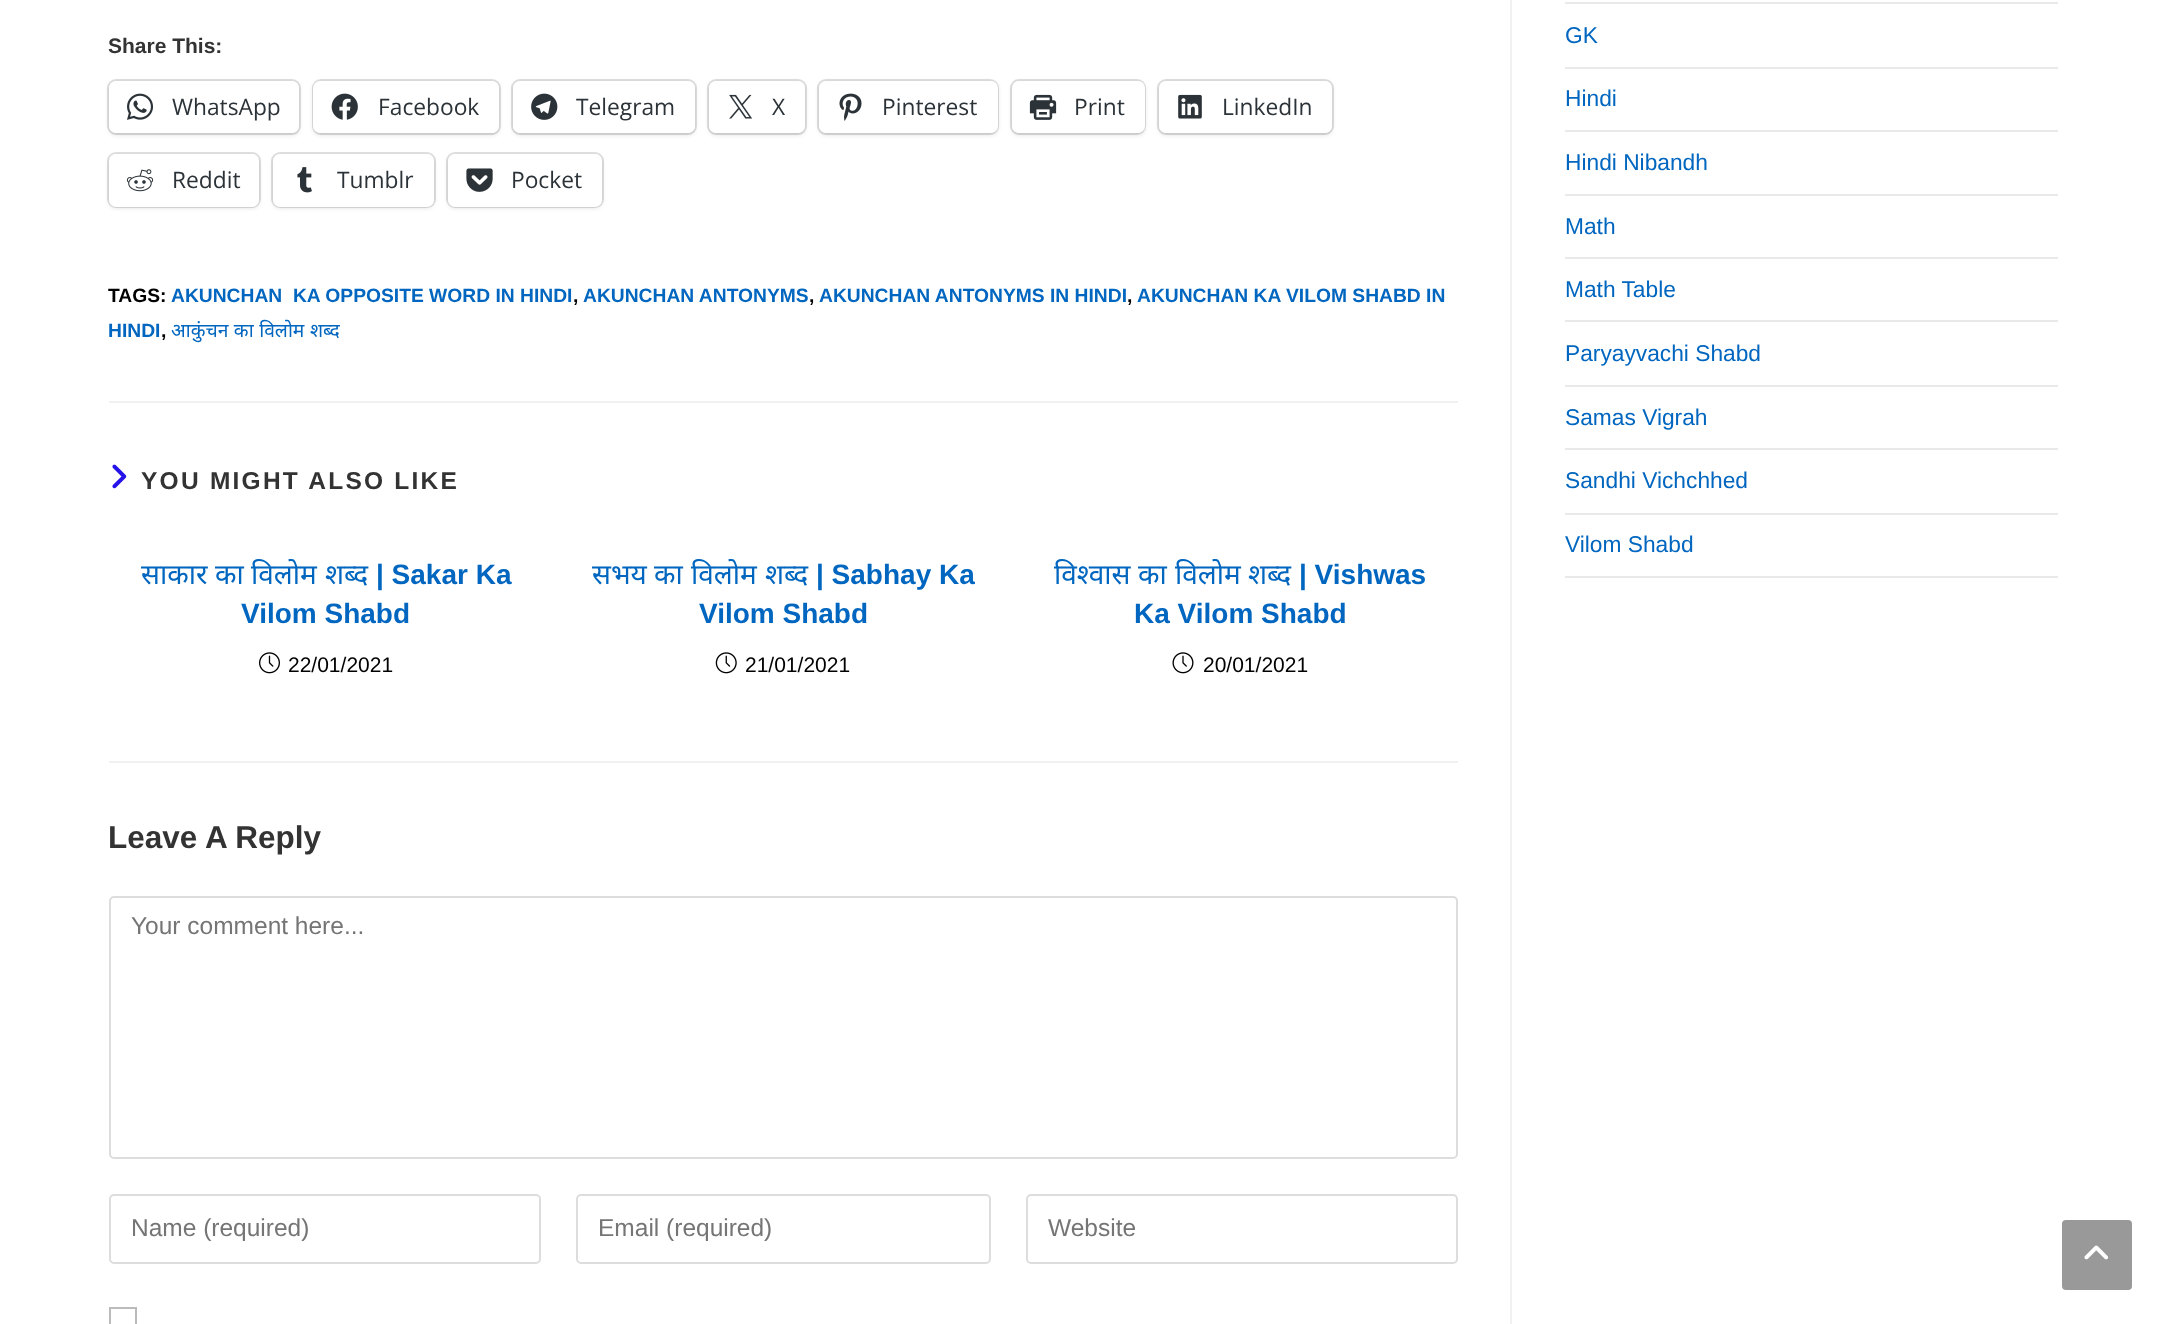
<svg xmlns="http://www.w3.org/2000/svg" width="2165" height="1324">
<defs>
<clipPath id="clip1"><rect x="131" y="1213" width="387" height="28"/></clipPath>
<clipPath id="clip2"><rect x="599" y="1213" width="369" height="28"/></clipPath>
</defs>
<rect width="100%" height="100%" fill="#fff"/>
<rect x="1510" width="2" height="1324" fill="#f1f1f1"/>
<text x="108" y="53" style="font-family:Liberation Sans;font-size:21px;font-weight:bold;fill:#333">Share This:</text>
<rect x="108" y="80" width="192" height="54" rx="8" fill="none" stroke="#e0e0e0" stroke-width="2"/>
<rect x="109" y="82" width="190" height="53" rx="7" fill="#0000001f" filter="blur(2px)"/>
<rect x="109" y="81" width="190" height="52" rx="7" fill="#fff"/>
<image x="127" y="93" width="26" height="27" href="media/1.png"/>
<text x="172" y="115" style="font-family:Open Sans;font-size:22.75px;fill:#2c3338">WhatsApp</text>
<rect x="313" y="80" width="187" height="54" rx="8" fill="none" stroke="#e0e0e0" stroke-width="2"/>
<rect x="313" y="82" width="186" height="53" rx="7" fill="#0000001f" filter="blur(2px)"/>
<rect x="313" y="81" width="186" height="52" rx="7" fill="#fff"/>
<image x="331" y="93" width="27" height="27" href="media/2.png"/>
<text x="378" y="115" style="font-family:Open Sans;font-size:22.75px;fill:#2c3338">Facebook</text>
<rect x="512" y="80" width="184" height="54" rx="8" fill="none" stroke="#e0e0e0" stroke-width="2"/>
<rect x="513" y="82" width="182" height="53" rx="7" fill="#0000001f" filter="blur(2px)"/>
<rect x="513" y="81" width="182" height="52" rx="7" fill="#fff"/>
<image x="531" y="93" width="27" height="27" href="media/3.png"/>
<text x="576" y="115" style="font-family:Open Sans;font-size:22.75px;fill:#2c3338">Telegram</text>
<rect x="708" y="80" width="98" height="54" rx="8" fill="none" stroke="#e0e0e0" stroke-width="2"/>
<rect x="709" y="82" width="96" height="53" rx="7" fill="#0000001f" filter="blur(2px)"/>
<rect x="709" y="81" width="96" height="52" rx="7" fill="#fff"/>
<image x="729" y="94" width="23" height="25" href="media/4.png"/>
<text x="772" y="115" style="font-family:Open Sans;font-size:22.75px;fill:#2c3338">X</text>
<rect x="818" y="80" width="180" height="54" rx="8" fill="none" stroke="#e0e0e0" stroke-width="2"/>
<rect x="819" y="82" width="179" height="53" rx="7" fill="#0000001f" filter="blur(2px)"/>
<rect x="819" y="81" width="179" height="52" rx="7" fill="#fff"/>
<image x="839" y="93" width="23" height="28" href="media/5.png"/>
<text x="882" y="115" style="font-family:Open Sans;font-size:22.75px;fill:#2c3338">Pinterest</text>
<rect x="1011" y="80" width="134" height="54" rx="8" fill="none" stroke="#e0e0e0" stroke-width="2"/>
<rect x="1012" y="82" width="133" height="53" rx="7" fill="#0000001f" filter="blur(2px)"/>
<rect x="1012" y="81" width="133" height="52" rx="7" fill="#fff"/>
<image x="1029" y="94" width="28" height="26" href="media/6.png"/>
<text x="1074" y="115" style="font-family:Open Sans;font-size:22.75px;fill:#2c3338">Print</text>
<rect x="1158" y="80" width="175" height="54" rx="8" fill="none" stroke="#e0e0e0" stroke-width="2"/>
<rect x="1159" y="82" width="173" height="53" rx="7" fill="#0000001f" filter="blur(2px)"/>
<rect x="1159" y="81" width="173" height="52" rx="7" fill="#fff"/>
<image x="1178" y="94" width="24" height="25" href="media/7.png"/>
<text x="1222" y="115" style="font-family:Open Sans;font-size:22.75px;fill:#2c3338">LinkedIn</text>
<rect x="108" y="153" width="152" height="54" rx="8" fill="none" stroke="#e0e0e0" stroke-width="2"/>
<rect x="109" y="156" width="150" height="52" rx="7" fill="#0000001f" filter="blur(2px)"/>
<rect x="109" y="154" width="150" height="53" rx="7" fill="#fff"/>
<image x="126" y="169" width="28" height="23" href="media/8.png"/>
<text x="172" y="188" style="font-family:Open Sans;font-size:22.75px;fill:#2c3338">Reddit</text>
<rect x="272" y="153" width="163" height="54" rx="8" fill="none" stroke="#e0e0e0" stroke-width="2"/>
<rect x="273" y="156" width="161" height="52" rx="7" fill="#0000001f" filter="blur(2px)"/>
<rect x="273" y="154" width="161" height="53" rx="7" fill="#fff"/>
<image x="297" y="167" width="15" height="26" href="media/9.png"/>
<text x="337" y="188" style="font-family:Open Sans;font-size:22.75px;fill:#2c3338">Tumblr</text>
<rect x="447" y="153" width="156" height="54" rx="8" fill="none" stroke="#e0e0e0" stroke-width="2"/>
<rect x="448" y="156" width="154" height="52" rx="7" fill="#0000001f" filter="blur(2px)"/>
<rect x="448" y="154" width="154" height="53" rx="7" fill="#fff"/>
<image x="466" y="168" width="27" height="24" href="media/10.png"/>
<text x="511" y="188" style="font-family:Open Sans;font-size:22.75px;fill:#2c3338">Pocket</text>
<text x="108" y="302" style="font-family:Liberation Sans;font-size:19.25px;font-weight:bold;fill:#000">TAGS:</text>
<text x="171" y="302" style="font-family:Liberation Sans;font-size:19.25px;font-weight:bold;fill:#0066bf" xml:space="preserve">AKUNCHAN  KA OPPOSITE WORD IN HINDI</text>
<text x="573" y="302" style="font-family:Liberation Sans;font-size:19.25px;font-weight:bold;fill:#000">,</text>
<text x="583" y="302" style="font-family:Liberation Sans;font-size:19.25px;font-weight:bold;fill:#0066bf">AKUNCHAN ANTONYMS</text>
<text x="809" y="302" style="font-family:Liberation Sans;font-size:19.25px;font-weight:bold;fill:#000">,</text>
<text x="819" y="302" style="font-family:Liberation Sans;font-size:19.25px;font-weight:bold;fill:#0066bf">AKUNCHAN ANTONYMS IN HINDI</text>
<text x="1127" y="302" style="font-family:Liberation Sans;font-size:19.25px;font-weight:bold;fill:#000">,</text>
<text x="1137" y="302" style="font-family:Liberation Sans;font-size:19.25px;font-weight:bold;fill:#0066bf">AKUNCHAN KA VILOM SHABD IN</text>
<text x="108" y="337" style="font-family:Liberation Sans;font-size:19.25px;font-weight:bold;fill:#0066bf">HINDI</text>
<text x="161" y="337" style="font-family:Liberation Sans;font-size:19.25px;font-weight:bold;fill:#000">,</text>
<text x="171" y="337" word-spacing="0.5" style="font-family:Noto Sans;font-size:19.25px;fill:#0066bf">आकुंचन का विलोम शब्द</text>
<rect x="109" y="401" width="1349" height="2" fill="#f1f1f1"/>
<image x="112" y="464" width="15" height="25" href="media/11.png"/>
<text x="141" y="489" style="font-family:Liberation Sans;font-size:24.5px;font-weight:bold;letter-spacing:2.25px;fill:#333">YOU MIGHT ALSO LIKE</text>
<text x="141" y="584" style="font-family:Noto Sans;font-size:28px;fill:#0066bf">साकार</text>
<text x="215" y="584" style="font-family:Noto Sans;font-size:28px;fill:#0066bf">का</text>
<text x="251" y="584" style="font-family:Noto Sans;font-size:28px;fill:#0066bf">विलोम</text>
<text x="325" y="584" style="font-family:Noto Sans;font-size:28px;fill:#0066bf">शब्द</text>
<text x="376" y="584" style="font-family:Liberation Sans;font-size:28px;font-weight:bold;fill:#0066bf">| Sakar Ka</text>
<text x="241" y="623" style="font-family:Liberation Sans;font-size:28px;font-weight:bold;fill:#0066bf">Vilom Shabd</text>
<image x="259" y="652" width="21" height="22" href="media/12.png"/>
<text x="288" y="672" style="font-family:Liberation Sans;font-size:21px;fill:#000">22/01/2021</text>
<text x="592" y="584" style="font-family:Noto Sans;font-size:28px;fill:#0066bf">सभय</text>
<text x="654" y="584" style="font-family:Noto Sans;font-size:28px;fill:#0066bf">का</text>
<text x="691" y="584" style="font-family:Noto Sans;font-size:28px;fill:#0066bf">विलोम</text>
<text x="765" y="584" style="font-family:Noto Sans;font-size:28px;fill:#0066bf">शब्द</text>
<text x="816" y="584" style="font-family:Liberation Sans;font-size:28px;font-weight:bold;fill:#0066bf">| Sabhay Ka</text>
<text x="699" y="623" style="font-family:Liberation Sans;font-size:28px;font-weight:bold;fill:#0066bf">Vilom Shabd</text>
<image x="715" y="652" width="22" height="22" href="media/13.png"/>
<text x="745" y="672" style="font-family:Liberation Sans;font-size:21px;fill:#000">21/01/2021</text>
<text x="1054" y="584" style="font-family:Noto Sans;font-size:28px;fill:#0066bf">विश्वास</text>
<text x="1138" y="584" style="font-family:Noto Sans;font-size:28px;fill:#0066bf">का</text>
<text x="1175" y="584" style="font-family:Noto Sans;font-size:28px;fill:#0066bf">विलोम</text>
<text x="1248" y="584" style="font-family:Noto Sans;font-size:28px;fill:#0066bf">शब्द</text>
<text x="1299" y="584" style="font-family:Liberation Sans;font-size:28px;font-weight:bold;fill:#0066bf">| Vishwas</text>
<text x="1134" y="623" style="font-family:Liberation Sans;font-size:28px;font-weight:bold;fill:#0066bf">Ka Vilom Shabd</text>
<image x="1172" y="652" width="22" height="22" href="media/14.png"/>
<text x="1203" y="672" style="font-family:Liberation Sans;font-size:21px;fill:#000">20/01/2021</text>
<rect x="109" y="761" width="1349" height="2" fill="#f1f1f1"/>
<text x="108" y="848" style="font-family:Liberation Sans;font-size:31.5px;font-weight:bold;fill:#333">Leave A Reply</text>
<rect x="110" y="897" width="1347" height="261" rx="4" fill="none" stroke="#ddd" stroke-width="2"/>
<text x="131" y="934" style="font-family:Liberation Sans;font-size:24.5px;fill:#757575">Your comment here...</text>
<rect x="110" y="1195" width="430" height="68" rx="4" fill="none" stroke="#ddd" stroke-width="2"/>
<g clip-path="url(#clip1)">
<text x="131" y="1236" style="font-family:Liberation Sans;font-size:24.5px;fill:#757575">Name (required)</text>
</g>
<rect x="577" y="1195" width="413" height="68" rx="4" fill="none" stroke="#ddd" stroke-width="2"/>
<g clip-path="url(#clip2)">
<text x="598" y="1236" style="font-family:Liberation Sans;font-size:24.5px;fill:#757575">Email (required)</text>
</g>
<rect x="1027" y="1195" width="430" height="68" rx="4" fill="none" stroke="#ddd" stroke-width="2"/>
<text x="1048" y="1236" style="font-family:Liberation Sans;font-size:24.5px;fill:#757575">Website</text>
<rect x="110" y="1308" width="26" height="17" fill="none" stroke="#bbb" stroke-width="2"/>
<rect x="1565" y="2" width="493" height="2" fill="#e9e9e9"/>
<rect x="1565" y="67" width="493" height="2" fill="#e9e9e9"/>
<text x="1565" y="43" style="font-family:Liberation Sans;font-size:22.75px;fill:#0066bf">GK</text>
<rect x="1565" y="130" width="493" height="2" fill="#e9e9e9"/>
<text x="1565" y="106" style="font-family:Liberation Sans;font-size:22.75px;fill:#0066bf">Hindi</text>
<rect x="1565" y="194" width="493" height="2" fill="#e9e9e9"/>
<text x="1565" y="170" style="font-family:Liberation Sans;font-size:22.75px;fill:#0066bf">Hindi Nibandh</text>
<rect x="1565" y="257" width="493" height="2" fill="#e9e9e9"/>
<text x="1565" y="234" style="font-family:Liberation Sans;font-size:22.75px;fill:#0066bf">Math</text>
<rect x="1565" y="320" width="493" height="2" fill="#e9e9e9"/>
<text x="1565" y="297" style="font-family:Liberation Sans;font-size:22.75px;fill:#0066bf">Math Table</text>
<rect x="1565" y="385" width="493" height="2" fill="#e9e9e9"/>
<text x="1565" y="361" style="font-family:Liberation Sans;font-size:22.75px;fill:#0066bf">Paryayvachi Shabd</text>
<rect x="1565" y="448" width="493" height="2" fill="#e9e9e9"/>
<text x="1565" y="425" style="font-family:Liberation Sans;font-size:22.75px;fill:#0066bf">Samas Vigrah</text>
<rect x="1565" y="513" width="493" height="2" fill="#e9e9e9"/>
<text x="1565" y="488" style="font-family:Liberation Sans;font-size:22.75px;fill:#0066bf">Sandhi Vichchhed</text>
<rect x="1565" y="576" width="493" height="2" fill="#e9e9e9"/>
<text x="1565" y="552" style="font-family:Liberation Sans;font-size:22.75px;fill:#0066bf">Vilom Shabd</text>
<rect x="2062" y="1220" width="70" height="70" rx="4" fill="#999"/>
<image x="2084" y="1245" width="25" height="15" href="media/15.png"/>
</svg>
